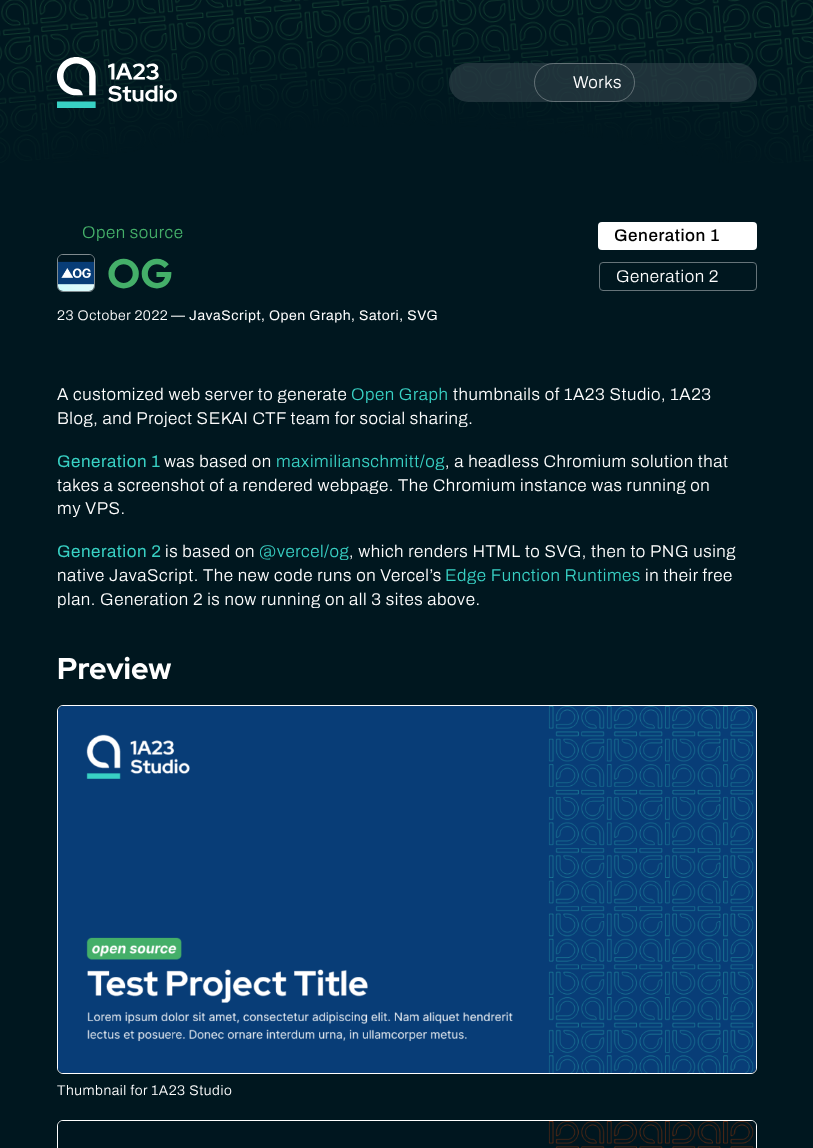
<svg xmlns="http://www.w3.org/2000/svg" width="813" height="1148">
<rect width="100%" height="100%" fill="#00171f"/>
<image x="0" y="0" width="813" height="163" href="media/1.png"/>
<image x="57" y="57" width="120" height="51" href="media/2.png"/>
<rect x="449" y="63" width="308" height="39" rx="19.5" fill="#33454c99"/>
<rect x="534.5" y="63.5" width="100" height="38" rx="19" fill="none" stroke="#ffffff4d"/>
<text x="573" y="88" style="font-family:Archivo;font-size:17px;font-weight:300;letter-spacing:0.55px;fill:#fff">Works</text>
<text x="82" y="238" style="font-family:Archivo;font-size:17px;font-weight:300;letter-spacing:0.55px;fill:#44af69">Open source</text>
<rect x="57.5" y="254.5" width="37" height="37" rx="5.5" fill="none" stroke="#808b8f"/>
<image x="58" y="255" width="36" height="36" href="media/3.png"/>
<text x="107" y="288" style="font-family:Red Hat Display;font-size:41px;font-weight:800;fill:#44af69">OG</text>
<text x="57" y="320" style="font-family:Archivo;font-size:14px;font-weight:300;letter-spacing:0.55px;fill:#fff">23 October 2022</text>
<text x="171" y="320" style="font-family:Archivo;font-size:14px;letter-spacing:0.55px;fill:#fff">— JavaScript, Open Graph, Satori, SVG</text>
<rect x="598" y="222" width="159" height="28" rx="4" fill="#fff"/>
<text x="614" y="241" style="font-family:Archivo;font-size:17px;font-weight:500;letter-spacing:0.55px;fill:#000">Generation 1</text>
<rect x="599.5" y="262.5" width="157" height="28" rx="3.5" fill="none" stroke="#667479"/>
<text x="616" y="282" style="font-family:Archivo;font-size:17px;font-weight:300;letter-spacing:0.55px;fill:#fff">Generation 2</text>
<text x="57" y="400" style="font-family:Archivo;font-size:17px;font-weight:300;letter-spacing:0.55px;fill:#fff">A customized web server to generate</text>
<text x="351" y="400" style="font-family:Archivo;font-size:17px;font-weight:300;letter-spacing:0.55px;fill:#38d1c4">Open Graph</text>
<text x="453" y="400" style="font-family:Archivo;font-size:17px;font-weight:300;letter-spacing:0.55px;fill:#fff">thumbnails of 1A23 Studio, 1A23</text>
<text x="57" y="424" style="font-family:Archivo;font-size:17px;font-weight:300;letter-spacing:0.55px;fill:#fff">Blog, and Project SEKAI CTF team for social sharing.</text>
<text x="57" y="467" style="font-family:Archivo;font-size:17px;letter-spacing:0.55px;fill:#38d1c4">Generation 1</text>
<text x="164" y="467" style="font-family:Archivo;font-size:17px;font-weight:300;letter-spacing:0.55px;fill:#fff">was based on</text>
<text x="276" y="467" style="font-family:Archivo;font-size:17px;font-weight:300;letter-spacing:0.55px;fill:#38d1c4">maximilianschmitt/og</text>
<text x="445" y="467" style="font-family:Archivo;font-size:17px;font-weight:300;letter-spacing:0.55px;fill:#fff">, a headless Chromium solution that</text>
<text x="57" y="491" style="font-family:Archivo;font-size:17px;font-weight:300;letter-spacing:0.55px;fill:#fff">takes a screenshot of a rendered webpage. The Chromium instance was running on</text>
<text x="57" y="514" style="font-family:Archivo;font-size:17px;font-weight:300;letter-spacing:0.55px;fill:#fff">my VPS.</text>
<text x="57" y="557" style="font-family:Archivo;font-size:17px;letter-spacing:0.55px;fill:#38d1c4">Generation 2</text>
<text x="165" y="557" style="font-family:Archivo;font-size:17px;font-weight:300;letter-spacing:0.55px;fill:#fff">is based on</text>
<text x="259" y="557" style="font-family:Archivo;font-size:17px;font-weight:300;letter-spacing:0.55px;fill:#38d1c4">@vercel/og</text>
<text x="349" y="557" style="font-family:Archivo;font-size:17px;font-weight:300;letter-spacing:0.55px;fill:#fff">, which renders HTML to SVG, then to PNG using</text>
<text x="57" y="581" style="font-family:Archivo;font-size:17px;font-weight:300;letter-spacing:0.55px;fill:#fff">native JavaScript. The new code runs on Vercel’s</text>
<text x="445" y="581" style="font-family:Archivo;font-size:17px;font-weight:300;letter-spacing:0.55px;fill:#38d1c4">Edge Function Runtimes</text>
<text x="645" y="581" style="font-family:Archivo;font-size:17px;font-weight:300;letter-spacing:0.55px;fill:#fff">in their free</text>
<text x="57" y="605" style="font-family:Archivo;font-size:17px;font-weight:300;letter-spacing:0.55px;fill:#fff">plan. Generation 2 is now running on all 3 sites above.</text>
<text x="57" y="679" style="font-family:Red Hat Display;font-size:30px;font-weight:800;fill:#fff">Preview</text>
<rect x="57.5" y="705.5" width="699" height="368" rx="5.5" fill="none" stroke="#fff"/>
<image x="58" y="706" width="698" height="367" href="media/4.png"/>
<text x="57" y="1095" style="font-family:Archivo;font-size:14px;font-weight:300;letter-spacing:0.55px;fill:#fff">Thumbnail for 1A23 Studio</text>
<rect x="57.5" y="1120.5" width="699" height="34" rx="5.5" fill="none" stroke="#fff"/>
<image x="58" y="1121" width="698" height="27" href="media/5.png"/>
</svg>
